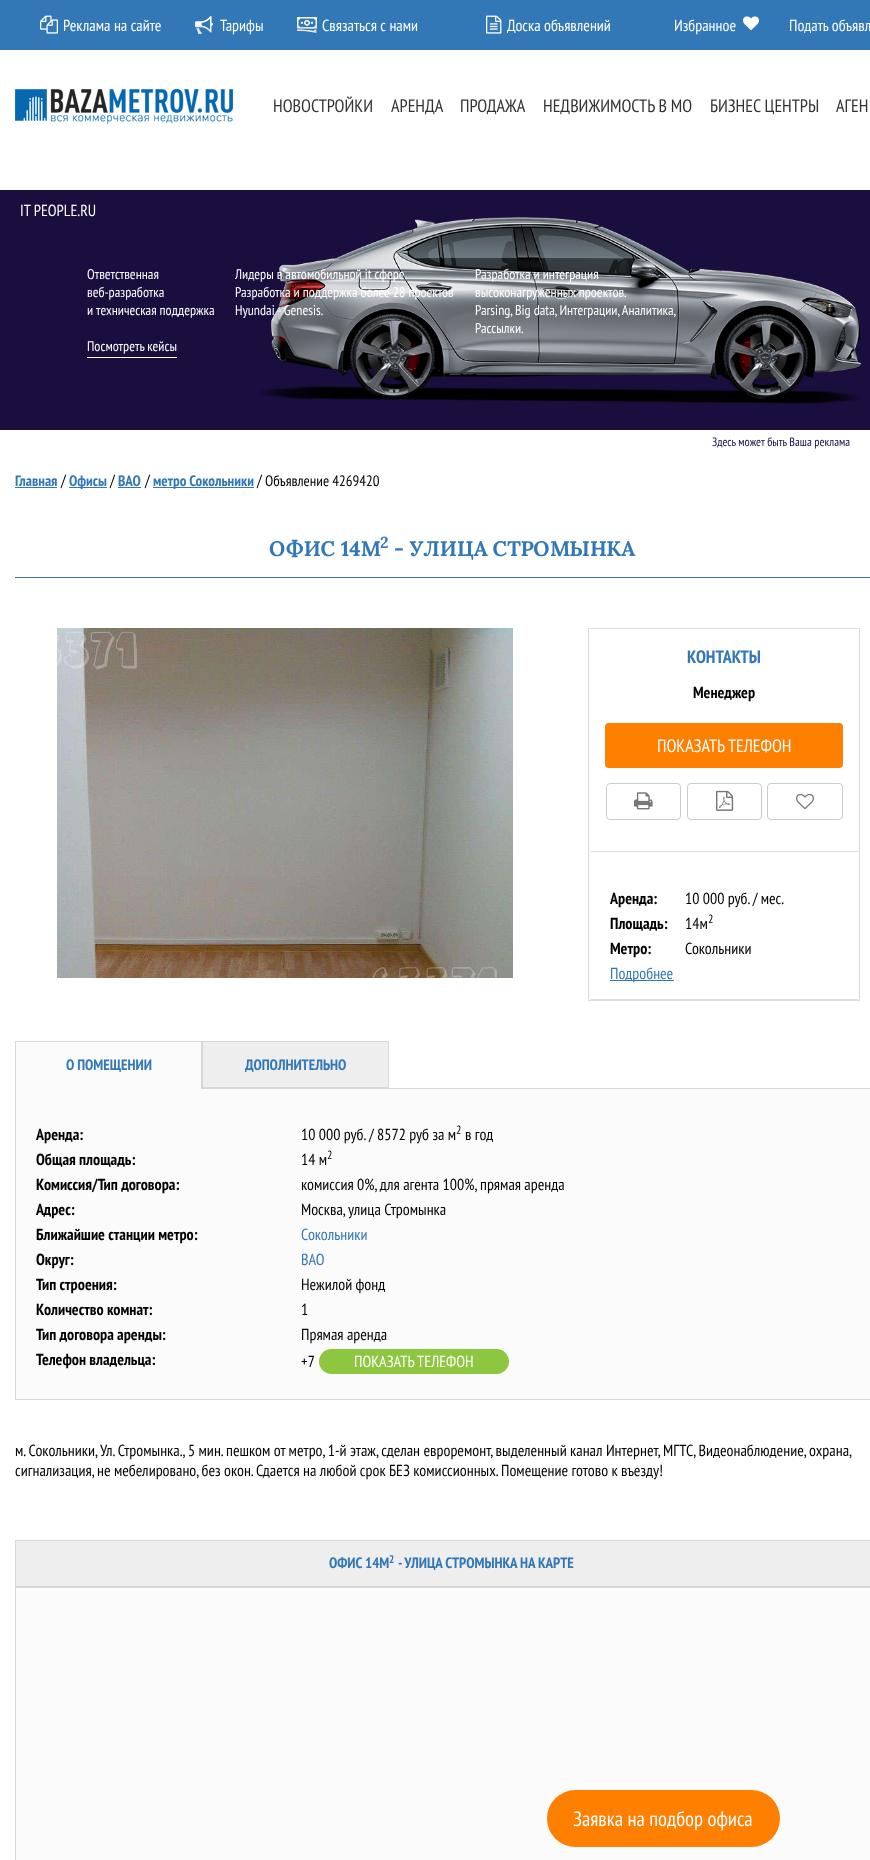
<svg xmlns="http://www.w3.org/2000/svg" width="870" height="1860">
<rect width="100%" height="100%" fill="#fff"/>
<rect width="870" height="50" fill="#3278b6"/>
<image x="40" y="15" width="18" height="19" href="media/1.png"/>
<text x="63" y="31" style="font-family:PT Sans Narrow;font-size:16px;fill:#fff">Реклама на сайте</text>
<image x="195" y="16" width="18" height="18" href="media/2.png"/>
<text x="220" y="31" style="font-family:PT Sans Narrow;font-size:16px;fill:#fff">Тарифы</text>
<image x="297" y="17" width="20" height="16" href="media/3.png"/>
<text x="322" y="31" style="font-family:PT Sans Narrow;font-size:16px;fill:#fff">Связаться с нами</text>
<image x="486" y="15" width="16" height="19" href="media/4.png"/>
<text x="507" y="31" style="font-family:PT Sans Narrow;font-size:16px;fill:#fff">Доска объявлений</text>
<text x="674" y="31" style="font-family:PT Sans Narrow;font-size:16px;fill:#fff">Избранное</text>
<image x="743" y="16" width="16" height="15" href="media/5.png"/>
<text x="789" y="31" style="font-family:PT Sans Narrow;font-size:16px;fill:#fff">Подать объявл</text>
<image x="15" y="89" width="218" height="35" href="media/6.png"/>
<text x="273" y="112" style="font-family:PT Sans Narrow;font-size:18px;fill:#333">НОВОСТРОЙКИ</text>
<text x="391" y="112" style="font-family:PT Sans Narrow;font-size:18px;fill:#333">АРЕНДА</text>
<text x="460" y="112" style="font-family:PT Sans Narrow;font-size:18px;fill:#333">ПРОДАЖА</text>
<text x="543" y="112" style="font-family:PT Sans Narrow;font-size:18px;fill:#333">НЕДВИЖИМОСТЬ В МО</text>
<text x="710" y="112" style="font-family:PT Sans Narrow;font-size:18px;fill:#333">БИЗНЕС ЦЕНТРЫ</text>
<text x="836" y="112" style="font-family:PT Sans Narrow;font-size:18px;fill:#333">АГЕН</text>
<rect y="190" width="870" height="240" fill="#190e3e"/>
<text x="20" y="216" style="font-family:PT Sans Narrow;font-size:16px;fill:#fff">IT PEOPLE.RU</text>
<image x="260" y="217" width="602" height="187" href="media/7.png"/>
<image x="355" y="320" width="77" height="76" href="media/8.png"/>
<image x="728" y="320" width="76" height="76" href="media/9.png"/>
<text x="87" y="279" style="font-family:PT Sans Narrow;font-size:14px;fill:#fff">Ответственная</text>
<text x="87" y="297" style="font-family:PT Sans Narrow;font-size:14px;fill:#fff">веб-разработка</text>
<text x="87" y="315" style="font-family:PT Sans Narrow;font-size:14px;fill:#fff">и техническая поддержка</text>
<text x="87" y="351" style="font-family:PT Sans Narrow;font-size:14px;fill:#fff">Посмотреть кейсы</text>
<rect x="87" y="357" width="90" height="1" fill="#fff"/>
<text x="235" y="279" style="font-family:PT Sans Narrow;font-size:14px;fill:#fff">Лидеры в автомобильной it сфере.</text>
<text x="235" y="297" style="font-family:PT Sans Narrow;font-size:14px;fill:#fff">Разработка и поддержка более 28 проектов</text>
<text x="235" y="315" style="font-family:PT Sans Narrow;font-size:14px;fill:#fff">Hyundai - Genesis.</text>
<text x="475" y="279" style="font-family:PT Sans Narrow;font-size:14px;fill:#fff">Разработка и интеграция</text>
<text x="475" y="297" style="font-family:PT Sans Narrow;font-size:14px;fill:#fff">высоконагруженных проектов.</text>
<text x="475" y="315" style="font-family:PT Sans Narrow;font-size:14px;fill:#fff">Parsing, Big data, Интеграции, Аналитика,</text>
<text x="475" y="333" style="font-family:PT Sans Narrow;font-size:14px;fill:#fff">Рассылки.</text>
<text x="712" y="446" style="font-family:PT Sans Narrow;font-size:12px;fill:#190e3e">Здесь может быть Ваша реклама</text>
<text x="15" y="486" style="font-family:PT Sans Narrow;font-size:15px;font-weight:bold;fill:#3278b6">Главная</text>
<rect x="15" y="487" width="42" height="1" fill="#3278b4"/>
<text x="61" y="486" style="font-family:PT Sans Narrow;font-size:16px;fill:#000">/</text>
<rect x="69" y="487" width="38" height="1" fill="#3278b4"/>
<text x="69" y="486" style="font-family:PT Sans Narrow;font-size:15px;font-weight:bold;fill:#3278b6">Офисы</text>
<text x="110" y="486" style="font-family:PT Sans Narrow;font-size:16px;fill:#000">/</text>
<text x="118" y="486" style="font-family:PT Sans Narrow;font-size:15px;font-weight:bold;fill:#3278b6">ВАО</text>
<rect x="118" y="487" width="23" height="1" fill="#3278b4"/>
<text x="145" y="486" style="font-family:PT Sans Narrow;font-size:16px;fill:#000">/</text>
<rect x="153" y="487" width="101" height="1" fill="#3278b4"/>
<text x="153" y="486" style="font-family:PT Sans Narrow;font-size:15px;font-weight:bold;fill:#3278b6">метро Сокольники</text>
<text x="257" y="486" style="font-family:PT Sans Narrow;font-size:16px;fill:#000">/</text>
<text x="265" y="486" style="font-family:PT Sans Narrow;font-size:15px;fill:#000">Объявление 4269420</text>
<rect x="15" y="577" width="855" height="1" fill="#3278b6"/>
<text x="269" y="556" style="font-family:Lora;font-size:21px;font-weight:bold;fill:#3278b6">ОФИС 14М</text>
<text x="380" y="548" style="font-family:Lora;font-size:16px;font-weight:bold;fill:#3278b6">2</text>
<text x="394" y="556" style="font-family:Lora;font-size:21px;font-weight:bold;fill:#3278b6">- УЛИЦА СТРОМЫНКА</text>
<image x="57" y="628" width="456" height="350" href="media/10.png"/>
<rect x="588.5" y="628.5" width="271" height="372" fill="none" stroke="#dcdcdc"/>
<rect x="591" y="851" width="267" height="1" fill="#dcdcdc"/>
<text x="687" y="663" style="font-family:PT Sans Narrow;font-size:18px;font-weight:bold;fill:#3278b6">КОНТАКТЫ</text>
<text x="693" y="698" style="font-family:PT Sans Narrow;font-size:16px;font-weight:bold;fill:#000">Менеджер</text>
<rect x="605" y="723" width="238" height="45" rx="4" fill="#ff7f00"/>
<text x="657" y="752" style="font-family:PT Sans Narrow;font-size:18px;fill:#fff">ПОКАЗАТЬ ТЕЛЕФОН</text>
<rect x="606.5" y="783.5" width="74" height="36" rx="3.5" fill="none" stroke="#ccc"/>
<image x="634" y="792" width="19" height="18" href="media/11.png"/>
<rect x="687.5" y="783.5" width="74" height="36" rx="3.5" fill="none" stroke="#ccc"/>
<image x="716" y="790" width="18" height="21" href="media/12.png"/>
<rect x="767.5" y="783.5" width="75" height="36" rx="3.5" fill="none" stroke="#ccc"/>
<image x="796" y="793" width="18" height="17" href="media/13.png"/>
<rect x="591" y="999" width="267" height="1" fill="#dcdcdc"/>
<text x="610" y="904" style="font-family:PT Sans Narrow;font-size:16px;font-weight:bold;fill:#000">Аренда:</text>
<text x="685" y="904" style="font-family:PT Sans Narrow;font-size:16px;fill:#000">10 000 руб. / мес.</text>
<text x="610" y="929" style="font-family:PT Sans Narrow;font-size:16px;font-weight:bold;fill:#000">Площадь:</text>
<text x="685" y="929" style="font-family:PT Sans Narrow;font-size:16px;fill:#000">14м</text>
<text x="708" y="923" style="font-family:PT Sans Narrow;font-size:12px;fill:#000">2</text>
<text x="610" y="954" style="font-family:PT Sans Narrow;font-size:16px;font-weight:bold;fill:#000">Метро:</text>
<text x="685" y="954" style="font-family:PT Sans Narrow;font-size:16px;fill:#000">Сокольники</text>
<rect x="610" y="980" width="64" height="1" fill="#3278b4"/>
<text x="610" y="979" style="font-family:PT Sans Narrow;font-size:16px;fill:#3278b6">Подробнее</text>
<rect x="15.5" y="1088.5" width="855" height="311" fill="#fbfbfb" stroke="#d7d7d7"/>
<rect x="16" y="1042" width="185" height="47" fill="#fbfbfb"/>
<rect x="15" y="1041" width="187" height="1" fill="#d7d7d7"/>
<rect x="201" y="1041" width="1" height="48" fill="#d7d7d7"/>
<rect x="15" y="1041" width="1" height="48" fill="#d7d7d7"/>
<text x="66" y="1070" style="font-family:PT Sans Narrow;font-size:15px;font-weight:bold;fill:#3278b6">О ПОМЕЩЕНИИ</text>
<rect x="202.5" y="1041.5" width="186" height="46" fill="#eee" stroke="#d7d7d7"/>
<text x="245" y="1070" style="font-family:PT Sans Narrow;font-size:15px;font-weight:bold;fill:#3278b6">ДОПОЛНИТЕЛЬНО</text>
<text x="36" y="1140" style="font-family:PT Sans Narrow;font-size:16px;font-weight:bold;fill:#000">Аренда:</text>
<text x="301" y="1140" style="font-family:PT Sans Narrow;font-size:16px;fill:#000">10 000 руб.</text>
<text x="369" y="1140" style="font-family:PT Sans Narrow;font-size:16px;fill:#000">/ 8572 руб за м</text>
<text x="456" y="1134" style="font-family:PT Sans Narrow;font-size:12px;fill:#000">2</text>
<text x="465" y="1140" style="font-family:PT Sans Narrow;font-size:16px;fill:#000">в год</text>
<text x="36" y="1165" style="font-family:PT Sans Narrow;font-size:16px;font-weight:bold;fill:#000">Общая площадь:</text>
<text x="301" y="1165" style="font-family:PT Sans Narrow;font-size:16px;fill:#000">14 м</text>
<text x="327" y="1159" style="font-family:PT Sans Narrow;font-size:12px;fill:#000">2</text>
<text x="36" y="1190" style="font-family:PT Sans Narrow;font-size:16px;font-weight:bold;fill:#000">Комиссия/Тип договора:</text>
<text x="301" y="1190" style="font-family:PT Sans Narrow;font-size:16px;fill:#000">комиссия 0%, для агента 100%,</text>
<text x="480" y="1190" style="font-family:PT Sans Narrow;font-size:16px;fill:#000">прямая аренда</text>
<text x="36" y="1215" style="font-family:PT Sans Narrow;font-size:16px;font-weight:bold;fill:#000">Адрес:</text>
<text x="301" y="1215" style="font-family:PT Sans Narrow;font-size:16px;fill:#000">Москва,</text>
<text x="348" y="1215" style="font-family:PT Sans Narrow;font-size:16px;fill:#000">улица Стромынка</text>
<text x="36" y="1240" style="font-family:PT Sans Narrow;font-size:16px;font-weight:bold;fill:#000">Ближайшие станции метро:</text>
<text x="301" y="1240" style="font-family:PT Sans Narrow;font-size:16px;fill:#3278b6">Сокольники</text>
<text x="36" y="1265" style="font-family:PT Sans Narrow;font-size:16px;font-weight:bold;fill:#000">Округ:</text>
<text x="301" y="1265" style="font-family:PT Sans Narrow;font-size:16px;fill:#3278b6">ВАО</text>
<text x="36" y="1290" style="font-family:PT Sans Narrow;font-size:16px;font-weight:bold;fill:#000">Тип строения:</text>
<text x="301" y="1290" style="font-family:PT Sans Narrow;font-size:16px;fill:#000">Нежилой фонд</text>
<text x="36" y="1315" style="font-family:PT Sans Narrow;font-size:16px;font-weight:bold;fill:#000">Количество комнат:</text>
<text x="301" y="1315" style="font-family:PT Sans Narrow;font-size:16px;fill:#000">1</text>
<text x="36" y="1340" style="font-family:PT Sans Narrow;font-size:16px;font-weight:bold;fill:#000">Тип договора аренды:</text>
<text x="301" y="1340" style="font-family:PT Sans Narrow;font-size:16px;fill:#000">Прямая аренда</text>
<text x="36" y="1365" style="font-family:PT Sans Narrow;font-size:16px;font-weight:bold;fill:#000">Телефон владельца:</text>
<text x="301" y="1367" style="font-family:PT Sans Narrow;font-size:16px;fill:#000">+7</text>
<rect x="319" y="1349" width="190" height="25" rx="12.5" fill="#8dc63f"/>
<text x="354" y="1367" style="font-family:PT Sans Narrow;font-size:16px;fill:#fff">ПОКАЗАТЬ ТЕЛЕФОН</text>
<text x="15" y="1456" style="font-family:PT Sans Narrow;font-size:16px;fill:#000">м. Сокольники, Ул. Стромынка., 5 мин. пешком от метро, 1-й этаж, сделан евроремонт, выделенный канал Интернет, МГТС, Видеонаблюдение, охрана,</text>
<text x="15" y="1476" style="font-family:PT Sans Narrow;font-size:16px;fill:#000">сигнализация, не мебелировано, без окон. Сдается на любой срок БЕЗ комиссионных. Помещение готово к въезду!</text>
<rect x="15.5" y="1540.5" width="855" height="46" fill="#eee" stroke="#d7d7d7"/>
<text x="329" y="1568" style="font-family:PT Sans Narrow;font-size:15px;font-weight:bold;fill:#3278b6">ОФИС 14М</text>
<text x="389" y="1563" style="font-family:PT Sans Narrow;font-size:11px;font-weight:bold;fill:#3278b6">2</text>
<text x="398" y="1568" style="font-family:PT Sans Narrow;font-size:15px;font-weight:bold;fill:#3278b6">- УЛИЦА СТРОМЫНКА НА КАРТЕ</text>
<rect x="15.5" y="1587.5" width="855" height="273" fill="#fbfbfb" stroke="#d7d7d7"/>
<rect x="547" y="1790" width="233" height="57" rx="28.5" fill="#ff7f00"/>
<text x="573" y="1826" style="font-family:PT Sans Narrow;font-size:20.75px;fill:#fff">Заявка на подбор офиса</text>
</svg>
